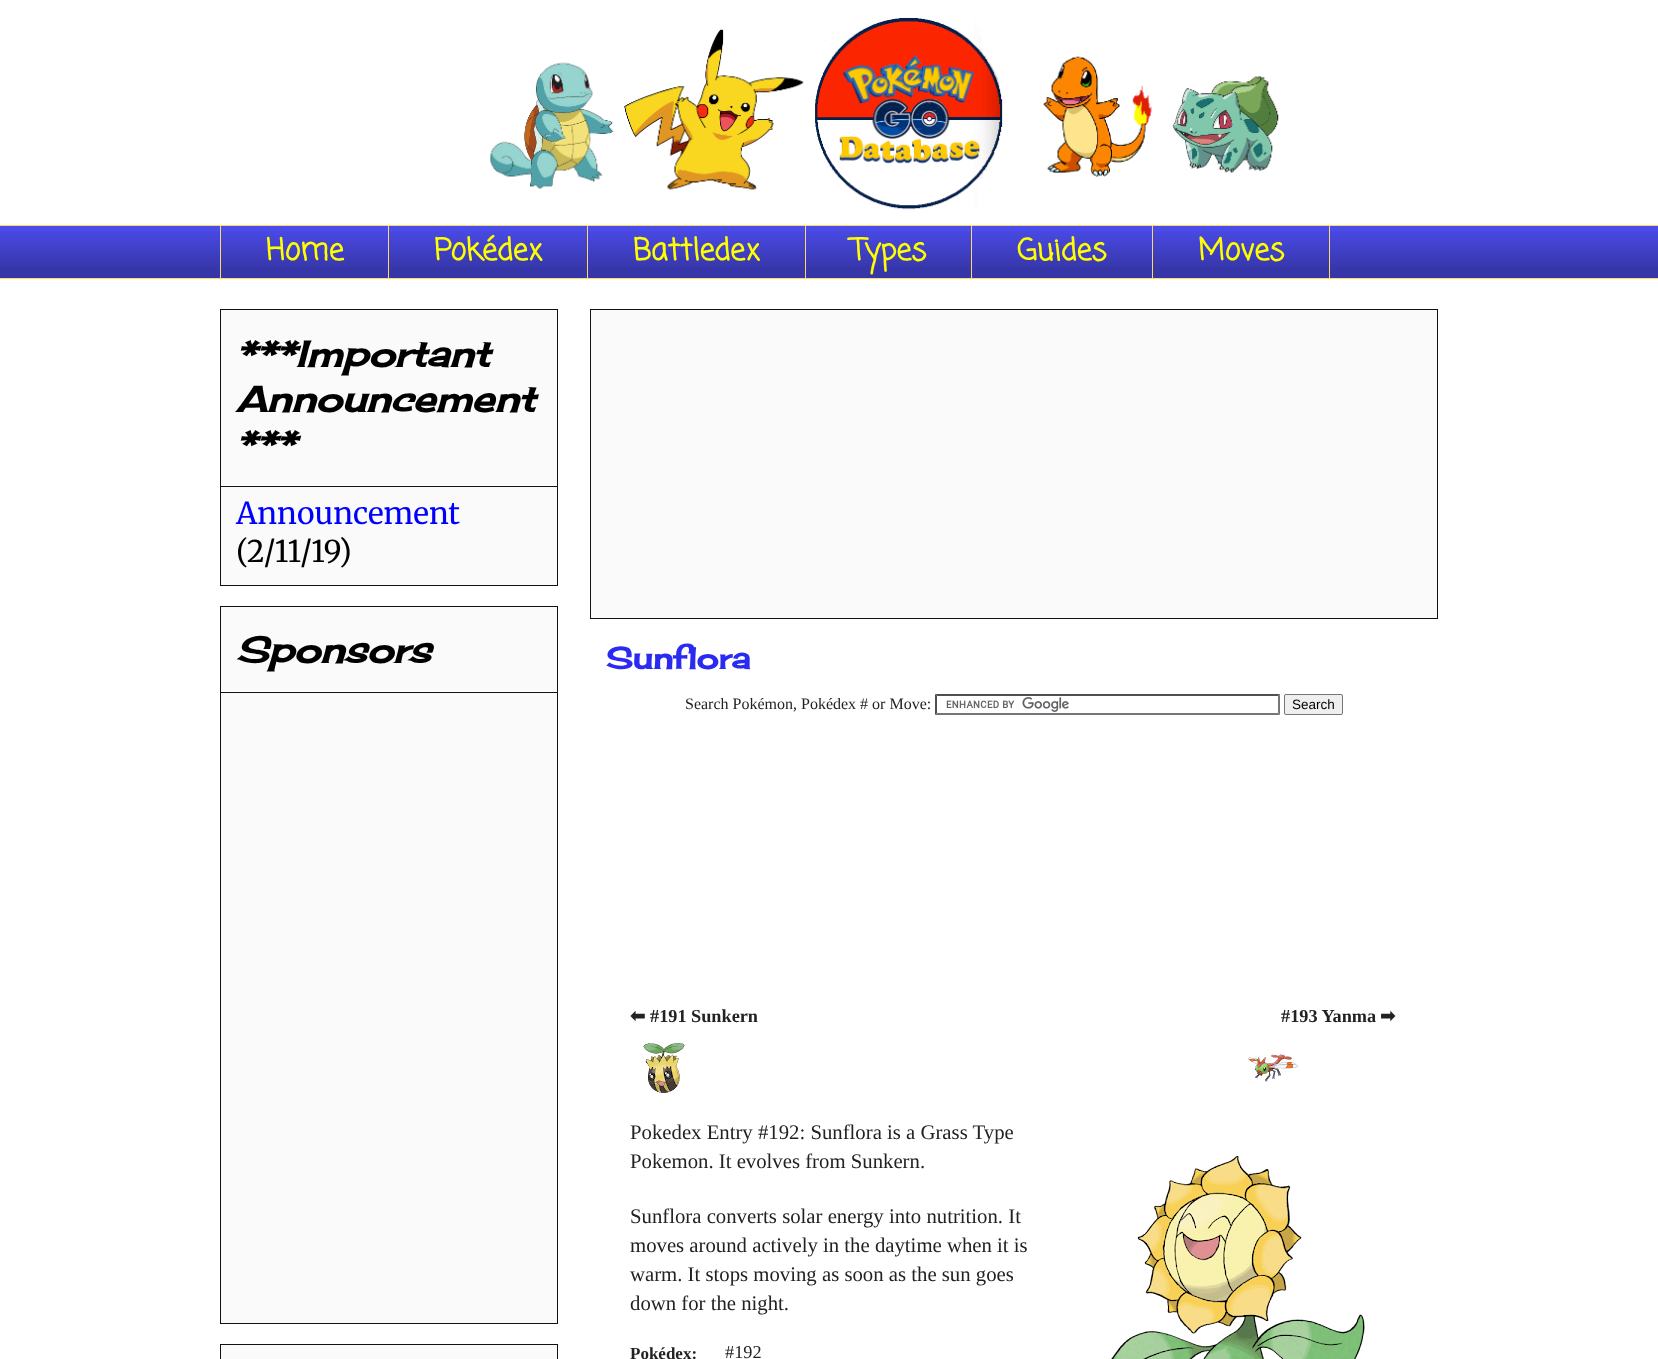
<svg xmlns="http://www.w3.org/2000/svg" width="1658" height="1359">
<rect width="100%" height="100%" fill="#fff"/>
<image x="490" y="17" width="789" height="193" href="media/1.png"/>
<rect y="226" width="1658" height="52" fill="#4b4be9"/>
<image x="0" y="231" width="1658" height="47" href="media/2.png"/>
<rect y="225" width="1658" height="1" fill="#ffd966"/>
<rect x="220" y="225" width="1" height="54" fill="#ffd966"/>
<text x="266" y="260" style="font-family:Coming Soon;font-size:30px;font-weight:bold;fill:#ff0">Home</text>
<rect x="388" y="225" width="1" height="54" fill="#ffd966"/>
<text x="434" y="260" style="font-family:Coming Soon;font-size:30px;font-weight:bold;fill:#ff0">Pokédex</text>
<rect x="587" y="225" width="1" height="54" fill="#ffd966"/>
<text x="633" y="260" style="font-family:Coming Soon;font-size:30px;font-weight:bold;fill:#ff0">Battledex</text>
<rect x="805" y="225" width="1" height="54" fill="#ffd966"/>
<text x="851" y="260" style="font-family:Coming Soon;font-size:30px;font-weight:bold;fill:#ff0">Types</text>
<rect x="971" y="225" width="1" height="54" fill="#ffd966"/>
<text x="1017" y="260" style="font-family:Coming Soon;font-size:30px;font-weight:bold;fill:#ff0">Guides</text>
<rect x="1152.5" y="225.5" width="177" height="53" fill="none" stroke="#ffd966"/>
<text x="1198" y="260" style="font-family:Coming Soon;font-size:30px;font-weight:bold;fill:#ff0">Moves</text>
<rect y="278" width="1658" height="1" fill="#ffd966"/>
<rect x="220.5" y="309.5" width="337" height="276" fill="#fafafa" stroke="#111"/>
<rect x="221" y="485" width="336" height="1" fill="#fff"/>
<text x="236" y="367" style="font-family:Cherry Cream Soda;font-size:36px;font-weight:bold;font-style:italic;fill:#000">***Important</text>
<text x="236" y="412" style="font-family:Cherry Cream Soda;font-size:36px;font-weight:bold;font-style:italic;fill:#000">Announcement</text>
<text x="236" y="457" style="font-family:Cherry Cream Soda;font-size:36px;font-weight:bold;font-style:italic;fill:#000">***</text>
<rect x="221" y="486" width="336" height="1" fill="#111"/>
<text x="236" y="524" style="font-family:Merriweather;font-size:30px;font-weight:300;fill:#00f">Announcement</text>
<text x="236" y="562" style="font-family:Merriweather;font-size:30px;font-weight:300;fill:#000">(2/11/19)</text>
<rect x="220.5" y="606.5" width="337" height="717" fill="#fafafa" stroke="#111"/>
<rect x="221" y="691" width="336" height="1" fill="#fff"/>
<text x="236" y="663" style="font-family:Cherry Cream Soda;font-size:36px;font-weight:bold;font-style:italic;fill:#000">Sponsors</text>
<rect x="221" y="692" width="336" height="1" fill="#111"/>
<rect x="220.5" y="1344.5" width="337" height="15" fill="#fafafa" stroke="#111"/>
<rect x="590.5" y="309.5" width="847" height="309" fill="#fafafa" stroke="#111"/>
<text x="606" y="669" style="font-family:Cherry Cream Soda;font-size:30px;font-weight:bold;fill:#2a2af0">Sunflora</text>
<text x="685" y="709" style="font-family:Liberation Serif;font-size:16px;fill:#222">Search Pokémon, Pokédex # or Move:</text>
<image x="946" y="697" width="123" height="15" href="media/3.png"/>
<path d="M935 694h345l-2 2h-341z" fill="#4f4f4f"/>
<path d="M1280 694v21l-2-2v-17z" fill="#767676"/>
<path d="M1280 715h-345l2-2h341z" fill="#767676"/>
<path d="M935 715v-21l2 2v17z" fill="#4f4f4f"/>
<rect x="1284.5" y="694.5" width="58" height="20" rx="1.5" fill="#efefef" stroke="#767676"/>
<text x="1292" y="709" style="font-family:Liberation Sans;font-size:13.5px;fill:#000">Search</text>
<text x="630" y="1022" style="font-family:DejaVu Sans;font-size:18.25px;font-weight:bold;fill:#222">⬅</text>
<text x="650" y="1022" style="font-family:Liberation Serif;font-size:18.25px;font-weight:bold;fill:#222">#191 Sunkern</text>
<text x="1281" y="1022" style="font-family:Liberation Serif;font-size:18.25px;font-weight:bold;fill:#222">#193 Yanma</text>
<text x="1380" y="1022" style="font-family:DejaVu Sans;font-size:18.25px;font-weight:bold;fill:#222">➡</text>
<image x="643" y="1043" width="42" height="50" href="media/4.png"/>
<image x="1248" y="1054" width="50" height="28" href="media/5.png"/>
<text x="630" y="1139" style="font-family:Liberation Serif;font-size:20.75px;fill:#222">Pokedex Entry #192: Sunflora is a Grass Type</text>
<text x="630" y="1168" style="font-family:Liberation Serif;font-size:20.75px;fill:#222">Pokemon. It evolves from Sunkern.</text>
<image x="1111" y="1156" width="254" height="203" href="media/6.png"/>
<text x="630" y="1223" style="font-family:Liberation Serif;font-size:20.75px;fill:#222">Sunflora converts solar energy into nutrition. It</text>
<text x="630" y="1252" style="font-family:Liberation Serif;font-size:20.75px;fill:#222">moves around actively in the daytime when it is</text>
<text x="630" y="1281" style="font-family:Liberation Serif;font-size:20.75px;fill:#222">warm. It stops moving as soon as the sun goes</text>
<text x="630" y="1310" style="font-family:Liberation Serif;font-size:20.75px;fill:#222">down for the night.</text>
<text x="630" y="1359" style="font-family:Liberation Serif;font-size:17px;font-weight:bold;fill:#222">Pokédex:</text>
<text x="725" y="1358" style="font-family:Liberation Serif;font-size:18.25px;fill:#222">#192</text>
</svg>
